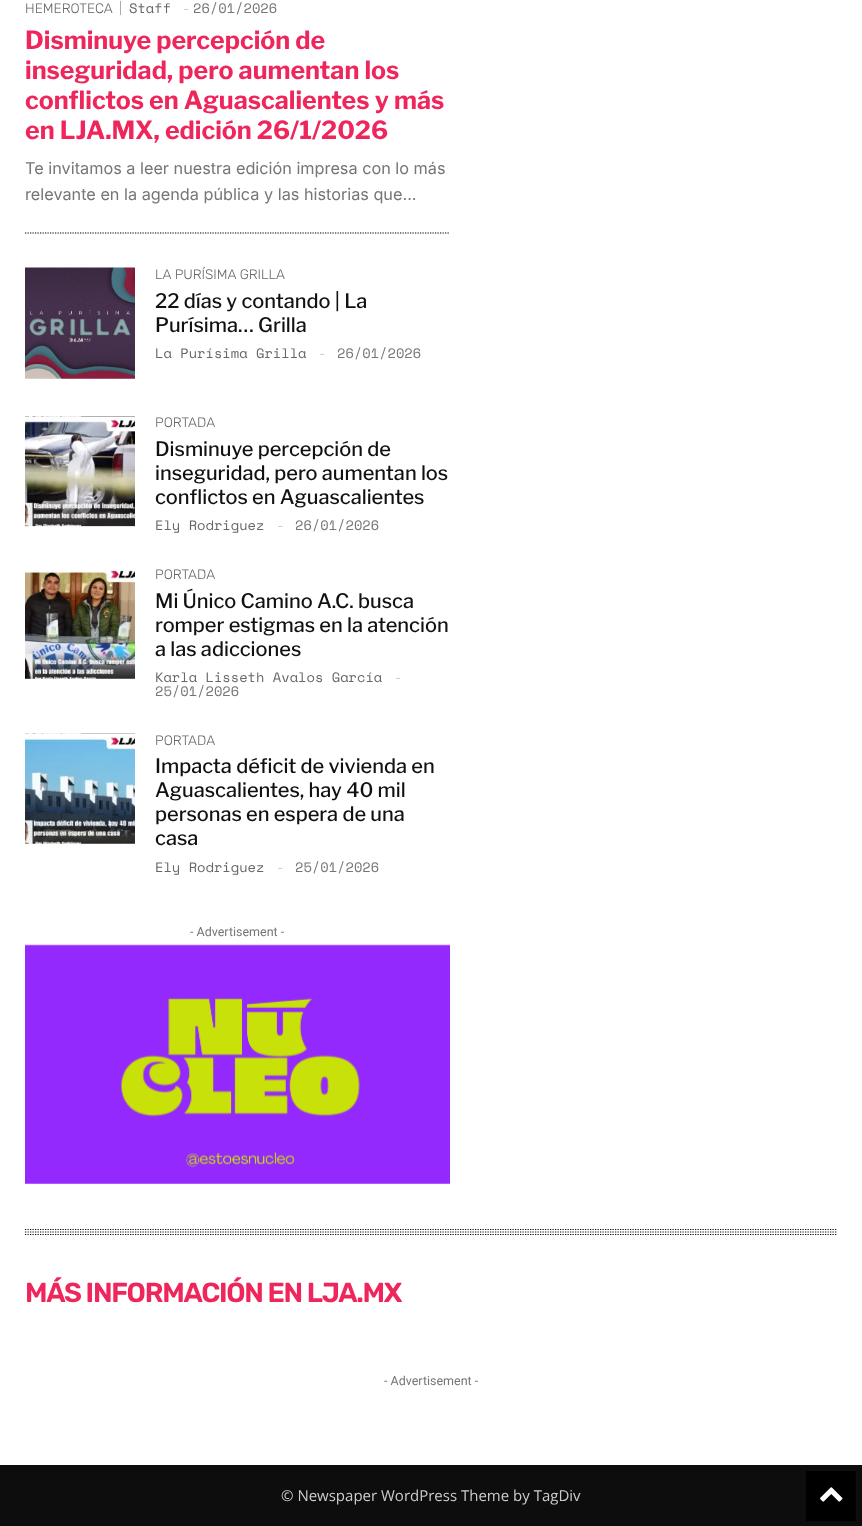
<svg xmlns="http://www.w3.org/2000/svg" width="862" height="1526">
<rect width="100%" height="100%" fill="#fff"/>
<path d="M25 233h425" fill="none" stroke="#000" stroke-width="1.2" stroke-dasharray="1.25 1.25"/>
<rect x="120" y="1" width="1" height="14" fill="#aaa"/>
<text x="25" y="13" style="font-family:Rubik;font-size:13.75px;font-weight:300;fill:#666">HEMEROTECA</text>
<text x="129" y="13" style="font-family:Space Mono;font-size:13.75px;fill:#666">Staff</text>
<text x="182" y="13" style="font-family:Space Mono;font-size:13.75px;fill:#ccc">-</text>
<text x="193" y="13" style="font-family:Space Mono;font-size:13.75px;fill:#767676">26/01/2026</text>
<text x="25" y="49" style="font-family:Libre Franklin;font-size:25px;font-weight:bold;fill:#ef265c">Disminuye percepción de</text>
<text x="25" y="79" style="font-family:Libre Franklin;font-size:25px;font-weight:bold;fill:#ef265c">inseguridad, pero aumentan los</text>
<text x="25" y="109" style="font-family:Libre Franklin;font-size:25px;font-weight:bold;fill:#ef265c">conflictos en Aguascalientes y más</text>
<text x="25" y="139" style="font-family:Libre Franklin;font-size:25px;font-weight:bold;fill:#ef265c">en LJA.MX, edición 26/1/2026</text>
<text x="25" y="174" style="font-family:Inter;font-size:16.25px;fill:#767676">Te invitamos a leer nuestra edición impresa con lo más</text>
<text x="25" y="200" style="font-family:Inter;font-size:16.25px;fill:#767676">relevante en la agenda pública y las historias que...</text>
<image x="25" y="267" width="110" height="112" href="media/1.png"/>
<text x="155" y="279" style="font-family:Rubik;font-size:13.75px;font-weight:300;fill:#666">LA PURÍSIMA GRILLA</text>
<text x="155" y="308" style="font-family:Libre Franklin;font-size:20px;font-weight:500;fill:#111">22 días y contando | La</text>
<text x="155" y="332" style="font-family:Libre Franklin;font-size:20px;font-weight:500;fill:#111">Purísima… Grilla</text>
<text x="155" y="358" style="font-family:Space Mono;font-size:13.75px;fill:#666">La Purísima Grilla</text>
<text x="318" y="358" style="font-family:Space Mono;font-size:13.75px;fill:#ccc">-</text>
<text x="337" y="358" style="font-family:Space Mono;font-size:13.75px;fill:#767676">26/01/2026</text>
<image x="25" y="416" width="110" height="111" href="media/2.png"/>
<text x="155" y="427" style="font-family:Rubik;font-size:13.75px;font-weight:300;fill:#666">PORTADA</text>
<text x="155" y="456" style="font-family:Libre Franklin;font-size:20px;font-weight:500;fill:#111">Disminuye percepción de</text>
<text x="155" y="480" style="font-family:Libre Franklin;font-size:20px;font-weight:500;fill:#111">inseguridad, pero aumentan los</text>
<text x="155" y="504" style="font-family:Libre Franklin;font-size:20px;font-weight:500;fill:#111">conflictos en Aguascalientes</text>
<text x="155" y="530" style="font-family:Space Mono;font-size:13.75px;fill:#666">Ely Rodriguez</text>
<text x="276" y="530" style="font-family:Space Mono;font-size:13.75px;fill:#ccc">-</text>
<text x="295" y="530" style="font-family:Space Mono;font-size:13.75px;fill:#767676">26/01/2026</text>
<image x="25" y="569" width="110" height="110" href="media/3.png"/>
<text x="155" y="579" style="font-family:Rubik;font-size:13.75px;font-weight:300;fill:#666">PORTADA</text>
<text x="155" y="608" style="font-family:Libre Franklin;font-size:20px;font-weight:500;fill:#111">Mi Único Camino A.C. busca</text>
<text x="155" y="632" style="font-family:Libre Franklin;font-size:20px;font-weight:500;fill:#111">romper estigmas en la atención</text>
<text x="155" y="656" style="font-family:Libre Franklin;font-size:20px;font-weight:500;fill:#111">a las adicciones</text>
<text x="155" y="682" style="font-family:Space Mono;font-size:13.75px;fill:#666">Karla Lisseth Avalos García</text>
<text x="394" y="682" style="font-family:Space Mono;font-size:13.75px;fill:#ccc">-</text>
<text x="155" y="696" style="font-family:Space Mono;font-size:13.75px;fill:#767676">25/01/2026</text>
<image x="25" y="733" width="110" height="111" href="media/4.png"/>
<text x="155" y="745" style="font-family:Rubik;font-size:13.75px;font-weight:300;fill:#666">PORTADA</text>
<text x="155" y="773" style="font-family:Libre Franklin;font-size:20px;font-weight:500;fill:#111">Impacta déficit de vivienda en</text>
<text x="155" y="797" style="font-family:Libre Franklin;font-size:20px;font-weight:500;fill:#111">Aguascalientes, hay 40 mil</text>
<text x="155" y="821" style="font-family:Libre Franklin;font-size:20px;font-weight:500;fill:#111">personas en espera de una</text>
<text x="155" y="845" style="font-family:Libre Franklin;font-size:20px;font-weight:500;fill:#111">casa</text>
<text x="155" y="872" style="font-family:Space Mono;font-size:13.75px;fill:#666">Ely Rodriguez</text>
<text x="276" y="872" style="font-family:Space Mono;font-size:13.75px;fill:#ccc">-</text>
<text x="295" y="872" style="font-family:Space Mono;font-size:13.75px;fill:#767676">25/01/2026</text>
<text x="190" y="936" style="font-family:Roboto;font-size:12.5px;fill:#767676">- Advertisement -</text>
<image x="25" y="944" width="425" height="240" href="media/5.png"/>
<path d="M25 1229.5h812.5" fill="none" stroke="#0a0a0a" stroke-width="1.2" stroke-dasharray="1.25 1.25"/>
<path d="M25 1232h812.5" fill="none" stroke="#0a0a0a" stroke-width="1.2" stroke-dasharray="1.25 1.25"/>
<path d="M25 1234.5h812.5" fill="none" stroke="#0a0a0a" stroke-width="1.2" stroke-dasharray="1.25 1.25"/>
<text x="25" y="1302" style="font-family:Rubik;font-size:27.5px;font-weight:600;letter-spacing:-1.25px;fill:#ef265c">MÁS INFORMACIÓN EN LJA.MX</text>
<text x="384" y="1385" style="font-family:Roboto;font-size:12.5px;fill:#767676">- Advertisement -</text>
<rect y="1465" width="862" height="61" fill="#0d0d0d"/>
<text x="281" y="1501" style="font-family:Open Sans;font-size:15px;fill:#ccc">© Newspaper WordPress Theme by TagDiv</text>
<rect x="806" y="1471" width="50" height="50" fill="#000"/>
<image x="820" y="1487" width="23" height="15" href="media/6.png"/>
</svg>
